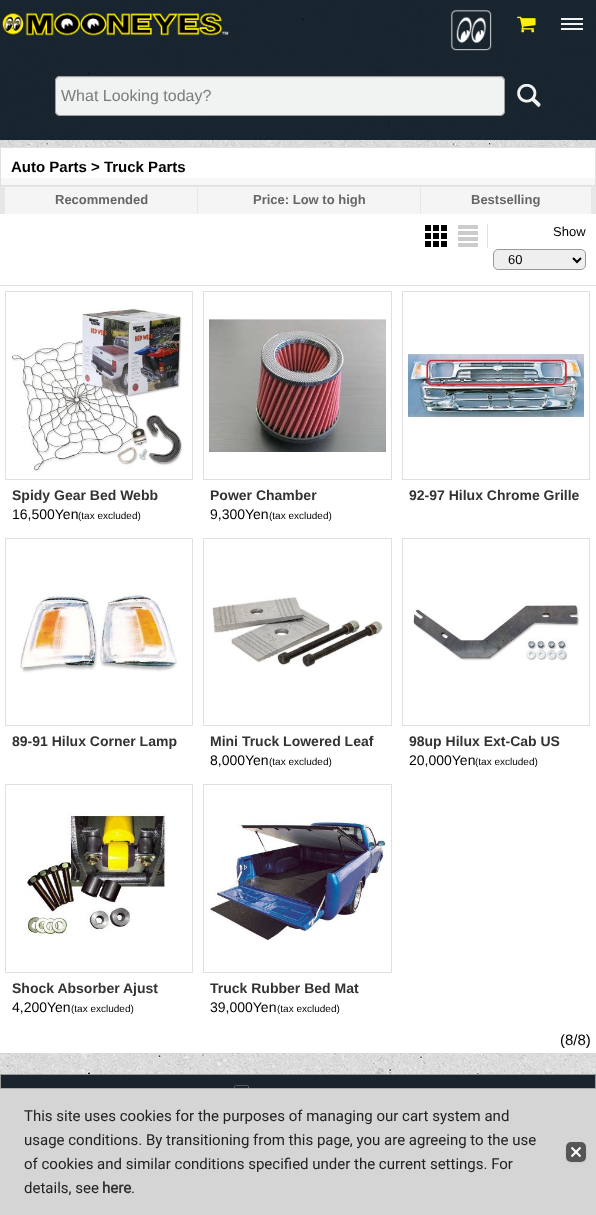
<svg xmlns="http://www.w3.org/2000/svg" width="596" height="1215">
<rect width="100%" height="100%" fill="#fff"/>
<image x="0" y="0" width="596" height="1074" href="media/1.png"/>
<rect width="596" height="52" fill="#0c1923f0"/>
<rect x="561" y="18" width="22" height="2" fill="#f1f2f2"/>
<rect x="561" y="23" width="22" height="2" fill="#fffffff0"/>
<rect x="561" y="28" width="22" height="2" fill="#f1f2f2"/>
<image x="2" y="12" width="227" height="24" href="media/2.png"/>
<image x="450" y="9" width="42" height="42" href="media/3.png"/>
<image x="517" y="16" width="19" height="17" href="media/4.png"/>
<rect y="52" width="596" height="88" fill="#0c1923f0"/>
<rect x="55" y="76" width="450" height="40" rx="5" fill="#fffffff0"/>
<path d="M60 78h440c2 0 4 2 4 4c0-3-1-5-4-5h-440l-2 1l-1 1l-1 3c0-2 2-4 4-4z" fill="#e0e1e1"/>
<rect x="55.5" y="76.5" width="449" height="39" rx="4.5" fill="none" stroke="#999999f0"/>
<text x="61" y="101" style="font-family:Liberation Sans;font-size:16px;fill:#7c7c7d">What Looking today?</text>
<image x="517" y="84" width="24" height="23" href="media/5.png"/>
<rect x="1" y="148" width="594" height="30" fill="#fff"/>
<rect y="178" width="596" height="7" fill="#f8f7f8"/>
<rect x="0.5" y="147.5" width="595" height="38" fill="none" stroke="#e0dfe3"/>
<text x="11" y="172" style="font-family:Liberation Sans;font-size:15px;font-weight:bold;fill:#000">Auto Parts &gt; Truck Parts</text>
<rect y="186" width="596" height="28" fill="#e7e7e7"/>
<rect y="214" width="596" height="71" fill="#fff"/>
<rect x="5" y="187" width="192" height="27" fill="#f5f5f5"/>
<text x="55" y="204" style="font-family:Liberation Sans;font-size:13px;font-weight:bold;fill:#666">Recommended</text>
<rect x="198" y="187" width="222" height="27" fill="#f5f5f5"/>
<text x="253" y="204" style="font-family:Liberation Sans;font-size:13px;font-weight:bold;fill:#666">Price: Low to high</text>
<rect x="421" y="187" width="170" height="27" fill="#f5f5f5"/>
<text x="471" y="204" style="font-family:Liberation Sans;font-size:13px;font-weight:bold;fill:#666">Bestselling</text>
<rect x="487" y="224" width="1" height="24" fill="#e0dfe3"/>
<image x="425" y="225" width="22" height="22" href="media/6.png"/>
<image x="458" y="225" width="20" height="22" href="media/7.png"/>
<text x="553" y="236" style="font-family:Liberation Sans;font-size:13px;fill:#000">Show</text>
<rect x="493.5" y="249.5" width="92" height="20" rx="4.5" fill="#efefef" stroke="#999"/>
<path d="M573 258l4 4l4-4" fill="none" stroke="#000" stroke-width="2"/>
<text x="508" y="264" style="font-family:Liberation Sans;font-size:13px;fill:#000">60</text>
<rect y="286" width="596" height="767" fill="#fff"/>
<rect y="285" width="596" height="1" fill="#e0dfe3"/>
<rect x="5.5" y="291.5" width="187" height="188" fill="none" stroke="#e0dfe3"/>
<image x="11" y="307" width="171" height="165" href="media/8.png"/>
<text x="12" y="500" style="font-family:Liberation Sans;font-size:14px;font-weight:bold;fill:#333">Spidy Gear Bed Webb</text>
<text x="12" y="519" style="font-family:Liberation Sans;font-size:14px;fill:#000">16,500Yen</text>
<text x="78" y="519" style="font-family:Liberation Sans;font-size:10px;fill:#000">(tax excluded)</text>
<rect x="203.5" y="291.5" width="188" height="188" fill="none" stroke="#e0dfe3"/>
<image x="209" y="318" width="177" height="135" href="media/9.png"/>
<text x="210" y="500" style="font-family:Liberation Sans;font-size:14px;font-weight:bold;fill:#333">Power Chamber</text>
<text x="210" y="519" style="font-family:Liberation Sans;font-size:14px;fill:#000">9,300Yen</text>
<text x="269" y="519" style="font-family:Liberation Sans;font-size:10px;fill:#000">(tax excluded)</text>
<rect x="402.5" y="291.5" width="187" height="188" fill="none" stroke="#e0dfe3"/>
<image x="408" y="353" width="176" height="67" href="media/10.png"/>
<text x="409" y="500" style="font-family:Liberation Sans;font-size:14px;font-weight:bold;fill:#333">92-97 Hilux Chrome Grille</text>
<rect x="5.5" y="538.5" width="187" height="187" fill="none" stroke="#e0dfe3"/>
<image x="20" y="593" width="160" height="80" href="media/11.png"/>
<text x="12" y="746" style="font-family:Liberation Sans;font-size:14px;font-weight:bold;fill:#333">89-91 Hilux Corner Lamp</text>
<rect x="203.5" y="538.5" width="188" height="187" fill="none" stroke="#e0dfe3"/>
<image x="209" y="596" width="174" height="71" href="media/12.png"/>
<text x="210" y="746" style="font-family:Liberation Sans;font-size:14px;font-weight:bold;fill:#333">Mini Truck Lowered Leaf</text>
<text x="210" y="765" style="font-family:Liberation Sans;font-size:14px;fill:#000">8,000Yen</text>
<text x="269" y="765" style="font-family:Liberation Sans;font-size:10px;fill:#000">(tax excluded)</text>
<rect x="402.5" y="538.5" width="187" height="187" fill="none" stroke="#e0dfe3"/>
<image x="413" y="605" width="167" height="56" href="media/13.png"/>
<text x="409" y="746" style="font-family:Liberation Sans;font-size:14px;font-weight:bold;fill:#333">98up Hilux Ext-Cab US</text>
<text x="409" y="765" style="font-family:Liberation Sans;font-size:14px;fill:#000">20,000Yen</text>
<text x="475" y="765" style="font-family:Liberation Sans;font-size:10px;fill:#000">(tax excluded)</text>
<rect x="5.5" y="784.5" width="187" height="188" fill="none" stroke="#e0dfe3"/>
<image x="25" y="810" width="141" height="126" href="media/14.png"/>
<text x="12" y="993" style="font-family:Liberation Sans;font-size:14px;font-weight:bold;fill:#333">Shock Absorber Ajust</text>
<text x="12" y="1012" style="font-family:Liberation Sans;font-size:14px;fill:#000">4,200Yen</text>
<text x="71" y="1012" style="font-family:Liberation Sans;font-size:10px;fill:#000">(tax excluded)</text>
<rect x="203.5" y="784.5" width="188" height="188" fill="none" stroke="#e0dfe3"/>
<image x="209" y="818" width="177" height="123" href="media/15.png"/>
<text x="210" y="993" style="font-family:Liberation Sans;font-size:14px;font-weight:bold;fill:#333">Truck Rubber Bed Mat</text>
<text x="210" y="1012" style="font-family:Liberation Sans;font-size:14px;fill:#000">39,000Yen</text>
<text x="277" y="1012" style="font-family:Liberation Sans;font-size:10px;fill:#000">(tax excluded)</text>
<text x="560" y="1045" style="font-family:Liberation Sans;font-size:15px;fill:#000">(8/8)</text>
<rect x="1" y="1075" width="594" height="13" fill="#1b242d"/>
<rect x="0.5" y="1074.5" width="595" height="39" fill="none" stroke="#999"/>
<image x="234" y="1085" width="15" height="3" href="media/16.png"/>
<rect y="1089" width="596" height="126" fill="#d5d5d5"/>
<rect y="1088" width="596" height="1" fill="#aaa"/>
<text x="24" y="1121" style="font-family:Roboto;font-size:15px;fill:#222">This site uses cookies for the purposes of managing our cart system and</text>
<text x="24" y="1145" style="font-family:Roboto;font-size:15px;fill:#222">usage conditions. By transitioning from this page, you are agreeing to the use</text>
<text x="24" y="1169" style="font-family:Roboto;font-size:15px;fill:#222">of cookies and similar conditions specified under the current settings. For</text>
<text x="24" y="1193" style="font-family:Roboto;font-size:15px;fill:#222">details, see</text>
<text x="102" y="1193" style="font-family:Roboto;font-size:15px;font-weight:bold;fill:#333">here</text>
<text x="131" y="1193" style="font-family:Roboto;font-size:15px;fill:#222">.</text>
<rect x="566" y="1143" width="20" height="20" rx="5" fill="#0000000d" filter="blur(1px)"/>
<image x="566" y="1142" width="20" height="20" href="media/17.png"/>
</svg>
